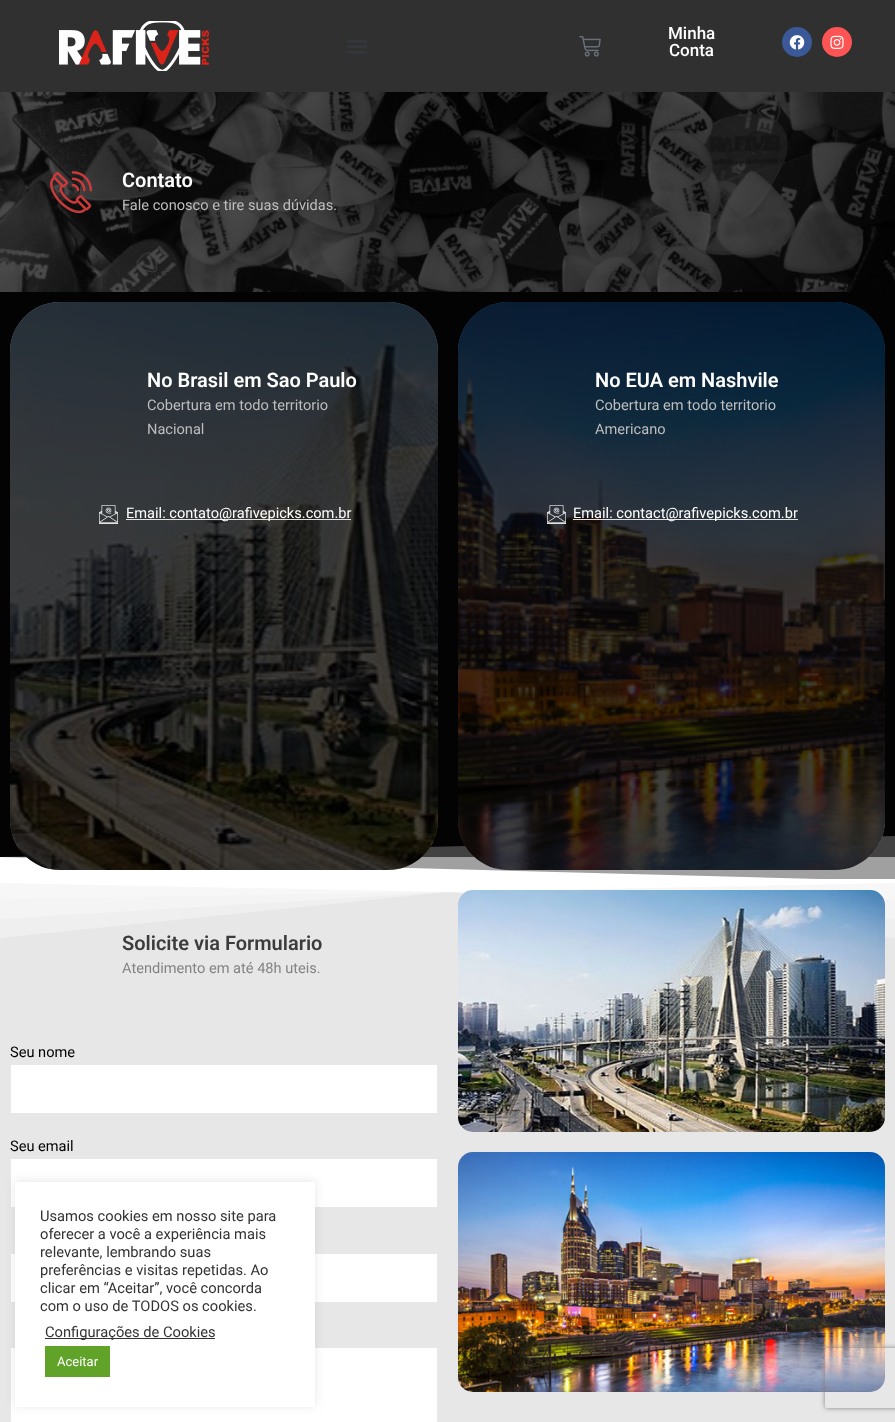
<svg xmlns="http://www.w3.org/2000/svg" width="895" height="1422">
<defs>
<clipPath id="clip1"><path d="M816 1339h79v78h-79zm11 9h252c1 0 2 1 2 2v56c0 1-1 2-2 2h-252c-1 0-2-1-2-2v-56c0-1 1-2 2-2z" clip-rule="evenodd"/></clipPath>
</defs>
<rect width="100%" height="100%" fill="#030303"/>
<rect x="1" y="857" width="894" height="22" fill="#818181"/>
<rect width="895" height="92" fill="#303030"/>
<image x="59" y="21" width="150" height="50" href="media/1.png"/>
<image x="347" y="40" width="20" height="14" href="media/2.png"/>
<image x="579" y="36" width="22" height="21" href="media/3.png"/>
<text x="668" y="39" style="font-family:Roboto;font-size:17px;font-weight:500;fill:#fff">Minha</text>
<text x="669" y="56" style="font-family:Roboto;font-size:17px;font-weight:500;fill:#fff">Conta</text>
<circle cx="797" cy="42" r="15" fill="#3b5998"/>
<image x="789" y="35" width="16" height="15" href="media/4.png"/>
<circle cx="837" cy="42" r="15" fill="#ff5454"/>
<image x="830" y="35" width="14" height="14" href="media/5.png"/>
<image x="0" y="92" width="895" height="200" href="media/6.png"/>
<image x="50" y="171" width="42" height="43" href="media/7.png"/>
<text x="122" y="187" style="font-family:Roboto;font-size:20px;font-weight:600;fill:#fff">Contato</text>
<text x="122" y="210" style="font-family:Roboto;font-size:14.6px;fill:#bebebe">Fale conosco e tire suas dúvidas.</text>
<path d="M895 881h-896v-24z" fill="#fff"/>
<path d="M-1 881h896v-45l-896 21z" fill="#ffffff40"/>
<image x="10" y="302" width="428" height="568" href="media/8.png"/>
<rect x="10" y="302" width="428" height="568" rx="50" fill="#000000bf"/>
<text x="147" y="387" style="font-family:Roboto;font-size:20px;font-weight:600;fill:#fff">No Brasil em Sao Paulo</text>
<text x="147" y="410" style="font-family:Roboto;font-size:14.6px;fill:#bebebe">Cobertura em todo territorio</text>
<text x="147" y="434" style="font-family:Roboto;font-size:14.6px;fill:#bebebe">Nacional</text>
<image x="99" y="505" width="19" height="18" href="media/9.png"/>
<rect x="99" y="523" width="19" height="1" fill="#e2e2e2"/>
<rect x="126" y="519" width="225" height="1" fill="#e2e2e2"/>
<text x="126" y="518" style="font-family:Roboto;font-size:14.6px;fill:#fff">Email: contato@rafivepicks.com.br</text>
<image x="458" y="302" width="427" height="568" href="media/10.png"/>
<rect x="458" y="302" width="427" height="568" rx="50" fill="#000000bf"/>
<text x="595" y="387" style="font-family:Roboto;font-size:20px;font-weight:600;fill:#fff">No EUA em Nashvile</text>
<text x="595" y="410" style="font-family:Roboto;font-size:14.6px;fill:#bebebe">Cobertura em todo territorio</text>
<text x="595" y="434" style="font-family:Roboto;font-size:14.6px;fill:#bebebe">Americano</text>
<image x="547" y="505" width="19" height="18" href="media/11.png"/>
<rect x="547" y="523" width="19" height="1" fill="#e2e2e2"/>
<rect x="573" y="519" width="225" height="1" fill="#e2e2e2"/>
<text x="573" y="518" style="font-family:Roboto;font-size:14.6px;fill:#fff">Email: contact@rafivepicks.com.br</text>
<rect y="883" width="895" height="539" fill="#e7e7e7"/>
<path d="M0 879v59l448-46l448 46v-59z" fill="#ffffff54"/>
<path d="M0 879v40l448-27l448 27v-40z" fill="#ffffff54"/>
<path d="M0 879v20l448-7l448 7v-20z" fill="#ffffff54"/>
<path d="M0 879v4l448 9l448-9v-4z" fill="#fff"/>
<text x="122" y="950" style="font-family:Roboto;font-size:20px;font-weight:600;fill:#3c3c3c">Solicite via Formulario</text>
<text x="122" y="973" style="font-family:Roboto;font-size:14.6px;fill:#838383">Atendimento em até 48h uteis.</text>
<text x="10" y="1057" style="font-family:Roboto;font-size:14.6px;fill:#000">Seu nome</text>
<rect x="11" y="1065" width="426" height="48" fill="#fff"/>
<text x="10" y="1151" style="font-family:Roboto;font-size:14.6px;fill:#000">Seu email</text>
<rect x="11" y="1159" width="426" height="48" fill="#fff"/>
<rect x="11" y="1254" width="426" height="48" fill="#fff"/>
<rect x="11" y="1348" width="426" height="74" fill="#fff"/>
<image x="458" y="890" width="427" height="242" href="media/12.png"/>
<image x="458" y="1152" width="427" height="240" href="media/13.png"/>
<rect x="15" y="1181" width="300" height="225" fill="#acabab4d" filter="blur(5px)"/>
<rect x="15" y="1182" width="300" height="225" fill="#fff"/>
<text x="40" y="1221" style="font-family:Roboto;font-size:14.7px;fill:#333">Usamos cookies em nosso site para</text>
<text x="40" y="1239" style="font-family:Roboto;font-size:14.7px;fill:#333">oferecer a você a experiência mais</text>
<text x="40" y="1257" style="font-family:Roboto;font-size:14.7px;fill:#333">relevante, lembrando suas</text>
<text x="40" y="1275" style="font-family:Roboto;font-size:14.7px;fill:#333">preferências e visitas repetidas. Ao</text>
<text x="40" y="1293" style="font-family:Roboto;font-size:14.7px;fill:#333">clicar em “Aceitar”, você concorda</text>
<text x="40" y="1311" style="font-family:Roboto;font-size:14.7px;fill:#333">com o uso de TODOS os cookies.</text>
<rect x="45" y="1338" width="170" height="1" fill="#333"/>
<text x="45" y="1337" style="font-family:Roboto;font-size:14.7px;fill:#333">Configurações de Cookies</text>
<rect x="45" y="1346" width="65" height="31" fill="#61a229"/>
<text x="57" y="1366" style="font-family:Roboto;font-size:13px;fill:#fff">Aceitar</text>
<g clip-path="url(#clip1)">
<rect x="825" y="1348" width="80" height="60" rx="2" fill="#808080" filter="blur(2.5px)"/>
</g>
</svg>
